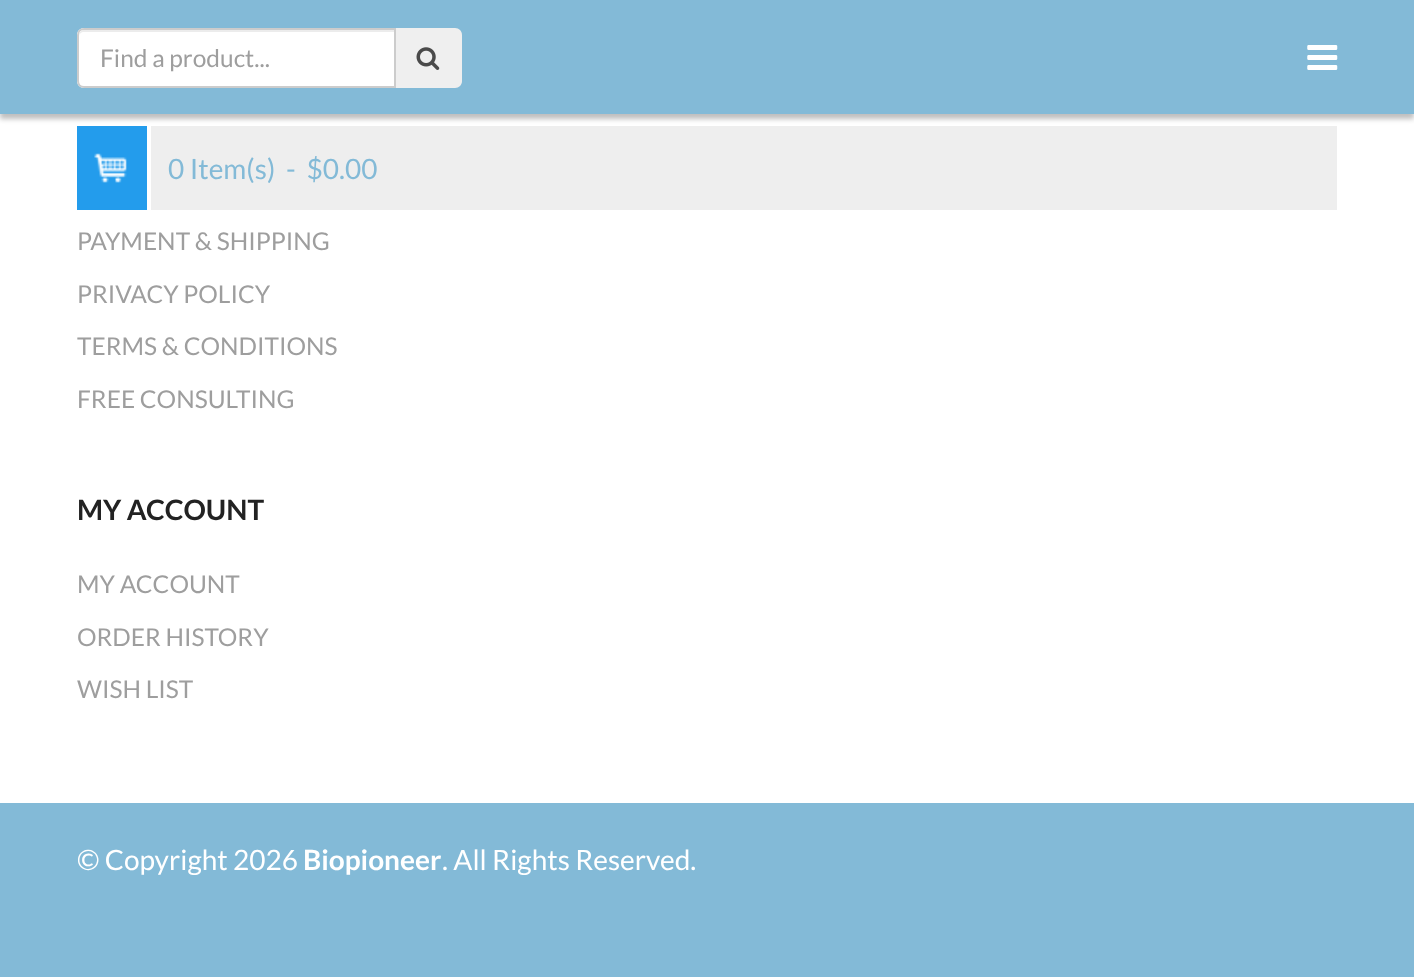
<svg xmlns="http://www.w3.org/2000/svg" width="1414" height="977">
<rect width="100%" height="100%" fill="#fff"/>
<rect y="5" width="1414" height="114" fill="#00000040" filter="blur(2.5px)"/>
<rect width="1414" height="114" fill="#83bad7"/>
<path d="M394 28h61c4 0 7 3 7 7v46c0 4-3 7-7 7h-61z" fill="#efefef"/>
<path d="M84 28h312v60h-312c-4 0-7-3-7-7v-46c0-4 3-7 7-7z" fill="#fff"/>
<path d="M84 32h310v-2h-310c-4 0-5 4-5 7c0-3 2-5 5-5z" fill="#ececec"/>
<path d="M84 29h311v58h-311c-3.5 0-6-2.5-6-6v-46c0-3.5 2.5-6 6-6z" fill="none" stroke="#ccc" stroke-width="2"/>
<text x="100" y="67" style="font-family:Lato;font-size:24.5px;fill:#9e9e9e">Find a product...</text>
<image x="416" y="47" width="24" height="23" href="media/1.png"/>
<image x="1307" y="45" width="31" height="25" href="media/2.png"/>
<rect x="77" y="126" width="70" height="84" fill="#239cec"/>
<image x="94" y="153" width="33" height="30" href="media/3.png"/>
<rect x="151" y="126" width="1186" height="84" fill="#eee"/>
<text x="168" y="179" style="font-family:Lato;font-size:28px;fill:#83bad7">0 Item(s)</text>
<text x="286" y="179" style="font-family:Lato;font-size:28px;fill:#83bad7" xml:space="preserve">-  $0.00</text>
<text x="77" y="250" style="font-family:Lato;font-size:24.5px;fill:#9e9e9e">PAYMENT &amp; SHIPPING</text>
<text x="77" y="303" style="font-family:Lato;font-size:24.5px;fill:#9e9e9e">PRIVACY POLICY</text>
<text x="77" y="355" style="font-family:Lato;font-size:24.5px;fill:#9e9e9e">TERMS &amp; CONDITIONS</text>
<text x="77" y="408" style="font-family:Lato;font-size:24.5px;fill:#9e9e9e">FREE CONSULTING</text>
<text x="77" y="520" style="font-family:Lato;font-size:28px;font-weight:bold;fill:#222">MY ACCOUNT</text>
<text x="77" y="593" style="font-family:Lato;font-size:24.5px;fill:#9e9e9e">MY ACCOUNT</text>
<text x="77" y="646" style="font-family:Lato;font-size:24.5px;fill:#9e9e9e">ORDER HISTORY</text>
<text x="77" y="698" style="font-family:Lato;font-size:24.5px;fill:#9e9e9e">WISH LIST</text>
<rect y="803" width="1414" height="174" fill="#83bad7"/>
<text x="77" y="870" style="font-family:Lato;font-size:28px;fill:#fff">© Copyright 2026</text>
<text x="303" y="870" style="font-family:Lato;font-size:28px;font-weight:bold;fill:#fff">Biopioneer</text>
<text x="442" y="870" style="font-family:Lato;font-size:28px;fill:#fff">. All Rights Reserved.</text>
</svg>
